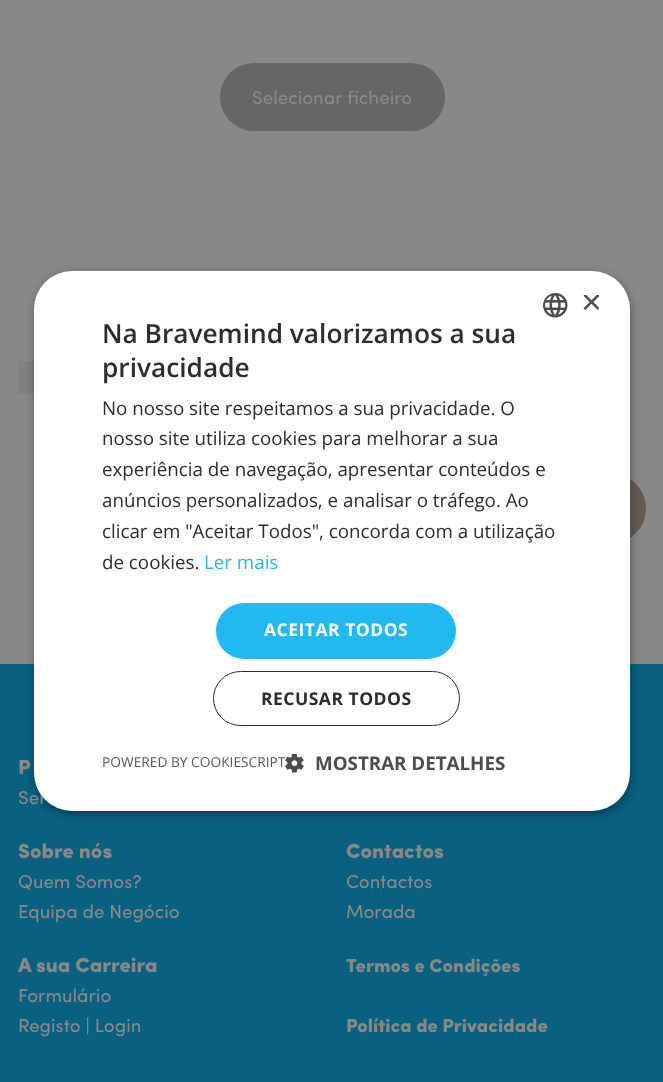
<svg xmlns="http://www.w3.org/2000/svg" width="663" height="1082">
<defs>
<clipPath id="clip1"><rect x="580" y="295" width="19" height="19"/></clipPath>
</defs>
<rect width="100%" height="100%" fill="#888"/>
<rect x="220" y="63" width="225" height="68" rx="34" fill="#656668"/>
<text x="252" y="104" style="font-family:Sofia;font-size:18.75px;fill:#888">Selecionar ficheiro</text>
<rect x="18" y="361" width="16" height="33" fill="#808183"/>
<rect x="578" y="474" width="68" height="69" rx="34" fill="#645c53"/>
<rect y="664" width="663" height="418" fill="#096080"/>
<rect x="35" y="274" width="596" height="540" rx="38" fill="#00000059" filter="blur(5px)"/>
<text x="18" y="804" style="font-family:Sofia;font-size:18.75px;fill:#888">Ser</text>
<rect x="34" y="271" width="596" height="540" rx="38" fill="#fff"/>
<image x="543" y="293" width="25" height="25" href="media/1.png"/>
<g clip-path="url(#clip1)">
<text x="581" y="314" style="font-family:Liberation Sans;font-size:36px;fill:#4d4d4d">×</text>
</g>
<text x="102" y="343" style="font-family:Open Sans;font-size:26.25px;font-weight:600;fill:#2d2d2d">Na Bravemind valorizamos a sua</text>
<text x="102" y="377" style="font-family:Open Sans;font-size:26.25px;font-weight:600;fill:#2d2d2d">privacidade</text>
<text x="102" y="415" style="font-family:Open Sans;font-size:18.75px;fill:#2d2d2d">No nosso site respeitamos a sua privacidade. O</text>
<text x="102" y="445" style="font-family:Open Sans;font-size:18.75px;fill:#2d2d2d">nosso site utiliza cookies para melhorar a sua</text>
<text x="102" y="476" style="font-family:Open Sans;font-size:18.75px;fill:#2d2d2d">experiência de navegação, apresentar conteúdos e</text>
<text x="102" y="507" style="font-family:Open Sans;font-size:18.75px;fill:#2d2d2d">anúncios personalizados, e analisar o tráfego. Ao</text>
<text x="102" y="538" style="font-family:Open Sans;font-size:18.75px;fill:#2d2d2d">clicar em "Aceitar Todos", concorda com a utilização</text>
<text x="102" y="569" style="font-family:Open Sans;font-size:18.75px;fill:#2d2d2d">de cookies.</text>
<text x="204" y="569" style="font-family:Open Sans;font-size:18.75px;fill:#22b8f0">Ler mais</text>
<rect x="216" y="603" width="240" height="56" rx="28" fill="#22b8f0"/>
<text x="264" y="636" style="font-family:Open Sans;font-size:17.5px;font-weight:bold;letter-spacing:0.5px;fill:#fff">ACEITAR TODOS</text>
<rect x="213.5" y="671.5" width="246" height="54" rx="27" fill="none" stroke="#2d2d2d"/>
<text x="261" y="705" style="font-family:Open Sans;font-size:17.5px;font-weight:bold;letter-spacing:0.5px;fill:#2d2d2d">RECUSAR TODOS</text>
<image x="285" y="754" width="19" height="19" href="media/2.png"/>
<text x="102" y="767" style="font-family:Open Sans;font-size:13.75px;fill:#575757">POWERED BY COOKIESCRIPT</text>
<text x="315" y="770" style="font-family:Open Sans;font-size:18.75px;font-weight:bold;fill:#4d4d4d">MOSTRAR DETALHES</text>
<text x="18" y="774" style="font-family:Sofia;font-size:20.5px;font-weight:900;fill:#888">P</text>
<text x="18" y="858" style="font-family:Sofia;font-size:20.5px;font-weight:900;fill:#888">Sobre nós</text>
<text x="18" y="888" style="font-family:Sofia;font-size:18.75px;fill:#888">Quem Somos?</text>
<text x="18" y="918" style="font-family:Sofia;font-size:18.75px;fill:#888">Equipa de Negócio</text>
<text x="18" y="972" style="font-family:Sofia;font-size:20.5px;font-weight:900;fill:#888">A sua Carreira</text>
<text x="18" y="1002" style="font-family:Sofia;font-size:18.75px;fill:#888">Formulário</text>
<text x="18" y="1032" style="font-family:Sofia;font-size:18.75px;fill:#888">Registo | Login</text>
<text x="346" y="858" style="font-family:Sofia;font-size:20.5px;font-weight:900;fill:#888">Contactos</text>
<text x="346" y="888" style="font-family:Sofia;font-size:18.75px;fill:#888">Contactos</text>
<text x="346" y="918" style="font-family:Sofia;font-size:18.75px;fill:#888">Morada</text>
<text x="346" y="972" style="font-family:Sofia;font-size:18.75px;font-weight:900;fill:#888">Termos e Condições</text>
<text x="346" y="1032" style="font-family:Sofia;font-size:18.75px;font-weight:900;fill:#888">Política de Privacidade</text>
</svg>
